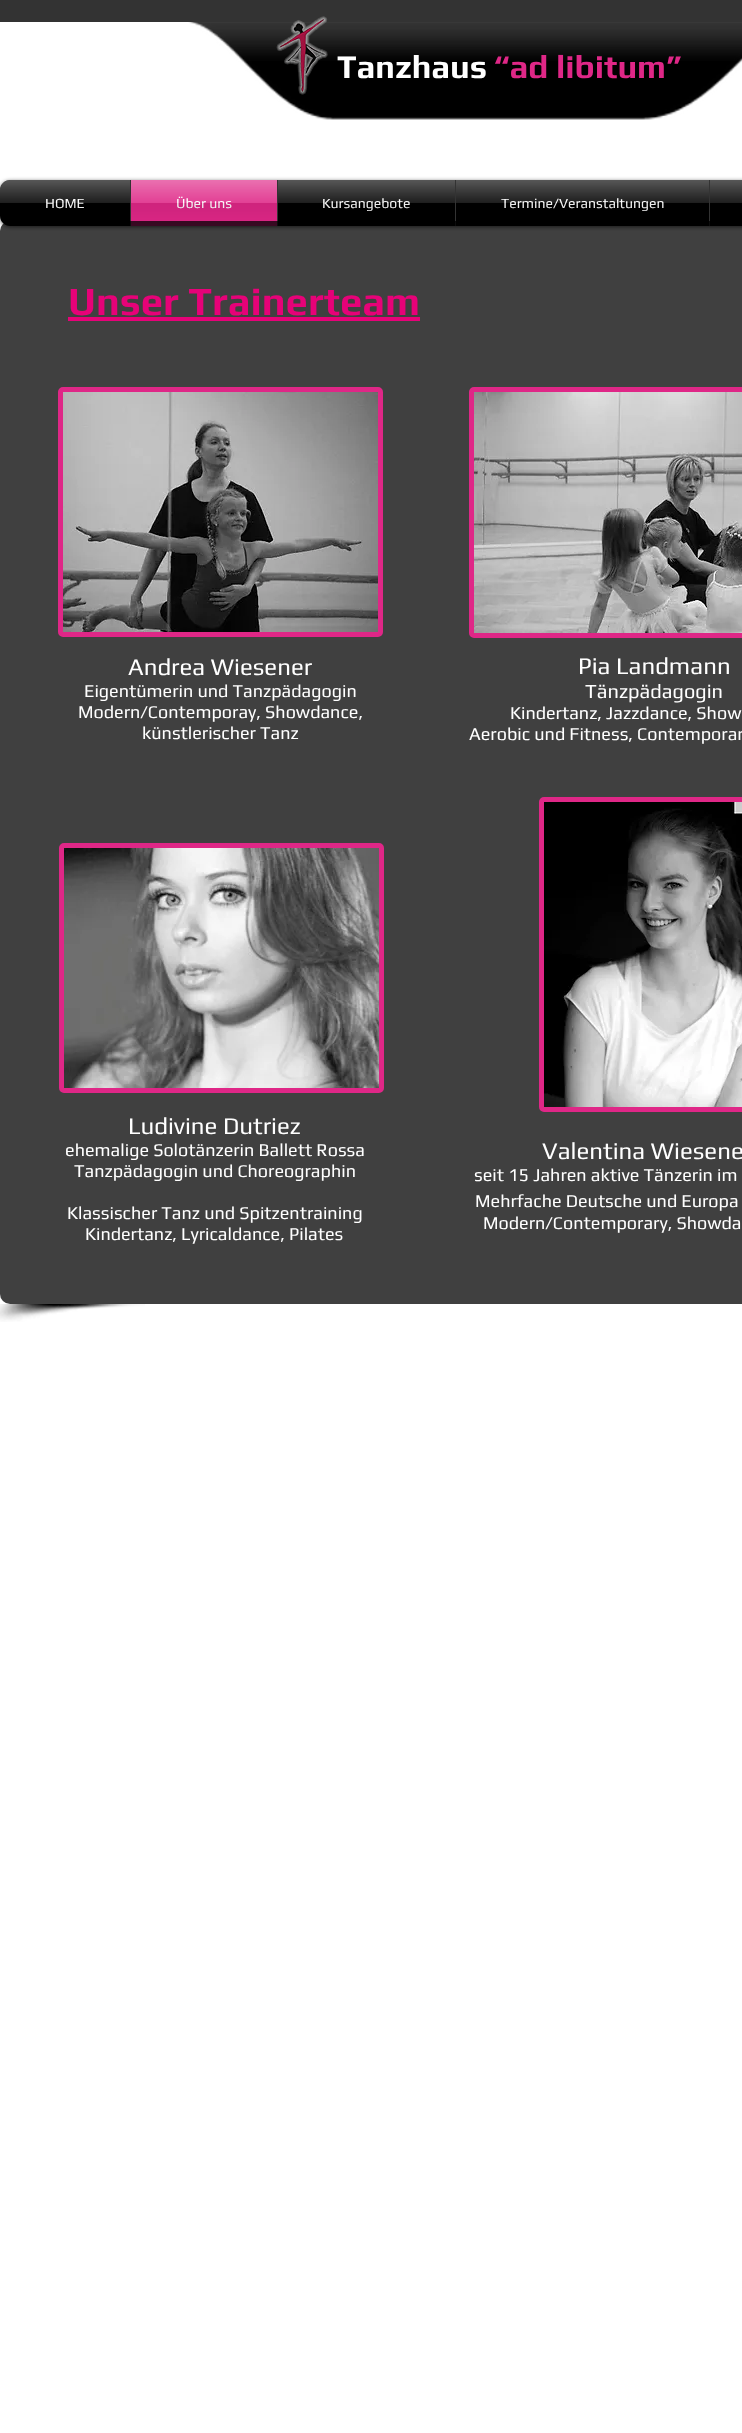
<svg xmlns="http://www.w3.org/2000/svg" width="742" height="2433">
<rect width="100%" height="100%" fill="#fff"/>
<rect width="742" height="22" fill="#333"/>
<image x="188" y="22" width="554" height="98" href="media/2.png"/>
<image x="276" y="16" width="52" height="79" href="media/1.png"/>
<text x="337" y="78" style="font-family:Play;font-size:33px;font-weight:bold;fill:#fff">Tanzhaus</text>
<text x="494" y="78" style="font-family:Play;font-size:33px;font-weight:bold;fill:#df2787">“ad libitum”</text>
<rect y="181" width="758" height="46" rx="10" fill="#00000099" filter="blur(2px)"/>
<image x="0" y="180" width="10" height="10" href="media/3.png"/>
<path d="M10 180h120v46h-120c-5.5 0-10-4.5-10-10v-26c0-5.5 4.5-10 10-10z" fill="#000"/>
<text x="45" y="208" style="font-family:Play;font-size:14px;fill:#fff">HOME</text>
<image x="0" y="180" width="130" height="28" href="media/4.png"/>
<rect x="131" y="180" width="146" height="46" fill="#df2787"/>
<rect x="130" y="180" width="1" height="46" fill="#333"/>
<text x="176" y="208" style="font-family:Play;font-size:14px;fill:#fff">Über uns</text>
<image x="131" y="180" width="146" height="44" href="media/5.png"/>
<rect x="278" y="180" width="177" height="46" fill="#000"/>
<rect x="277" y="180" width="1" height="46" fill="#333"/>
<text x="322" y="208" style="font-family:Play;font-size:14px;fill:#fff">Kursangebote</text>
<image x="278" y="180" width="177" height="31" href="media/6.png"/>
<rect x="456" y="180" width="253" height="46" fill="#000"/>
<rect x="455" y="180" width="1" height="46" fill="#333"/>
<text x="501" y="208" style="font-family:Play;font-size:14px;fill:#fff">Termine/Veranstaltungen</text>
<image x="456" y="180" width="253" height="31" href="media/7.png"/>
<rect x="710" y="180" width="32" height="46" fill="#000"/>
<rect x="709" y="180" width="1" height="46" fill="#333"/>
<image x="710" y="180" width="32" height="23" href="media/8.png"/>
<rect y="221" width="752" height="1083" rx="10" fill="#000000bf"/>
<image x="0" y="1304" width="145" height="18" href="media/9.png"/>
<text x="68" y="315" style="font-family:Play;font-size:40px;font-weight:bold;fill:#e60278">Unser Trainerteam</text>
<rect x="68" y="317" width="352" height="4" fill="#e60278"/>
<rect x="60.5" y="389.5" width="320" height="245" rx="2.5" fill="none" stroke="#df2787" stroke-width="5"/>
<image x="63" y="392" width="315" height="240" href="media/10.png"/>
<rect x="471.5" y="389.5" width="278" height="246" rx="2.5" fill="none" stroke="#df2787" stroke-width="5"/>
<image x="474" y="392" width="268" height="241" href="media/11.png"/>
<text x="128" y="675" style="font-family:Play;font-size:24px;fill:#fff">Andrea Wiesener</text>
<text x="84" y="697" style="font-family:Play;font-size:18px;fill:#fff">Eigentümerin und Tanzpädagogin</text>
<text x="78" y="718" style="font-family:Play;font-size:18px;fill:#fff">Modern/Contemporay, Showdance,</text>
<text x="142" y="739" style="font-family:Play;font-size:18px;fill:#fff">künstlerischer Tanz</text>
<text x="578" y="674" style="font-family:Play;font-size:24px;fill:#fff">Pia Landmann</text>
<text x="585" y="698" style="font-family:Play;font-size:20px;fill:#fff">Tänzpädagogin</text>
<text x="510" y="719" style="font-family:Play;font-size:18px;fill:#fff">Kindertanz, Jazzdance, Show</text>
<text x="469" y="740" style="font-family:Play;font-size:18px;fill:#fff">Aerobic und Fitness, Contemporar</text>
<rect x="61.5" y="845.5" width="320" height="245" rx="2.5" fill="none" stroke="#df2787" stroke-width="5"/>
<image x="64" y="848" width="315" height="240" href="media/12.png"/>
<rect x="541.5" y="799.5" width="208" height="310" rx="2.5" fill="none" stroke="#df2787" stroke-width="5"/>
<image x="544" y="802" width="198" height="305" href="media/13.png"/>
<text x="128" y="1134" style="font-family:Play;font-size:24px;fill:#fff">Ludivine Dutriez</text>
<text x="65" y="1156" style="font-family:Play;font-size:18px;fill:#fff">ehemalige Solotänzerin Ballett Rossa</text>
<text x="74" y="1177" style="font-family:Play;font-size:18px;fill:#fff">Tanzpädagogin und Choreographin</text>
<text x="67" y="1219" style="font-family:Play;font-size:18px;fill:#fff">Klassischer Tanz und Spitzentraining</text>
<text x="85" y="1240" style="font-family:Play;font-size:18px;fill:#fff">Kindertanz, Lyricaldance, Pilates</text>
<text x="542" y="1159" style="font-family:Play;font-size:24px;fill:#fff">Valentina Wiesene</text>
<text x="474" y="1181" style="font-family:Play;font-size:18px;fill:#fff">seit 15 Jahren aktive Tänzerin im</text>
<text x="475" y="1207" style="font-family:Play;font-size:18px;fill:#fff">Mehrfache Deutsche und Europa</text>
<text x="483" y="1229" style="font-family:Play;font-size:18px;fill:#fff">Modern/Contemporary, Showda</text>
</svg>
